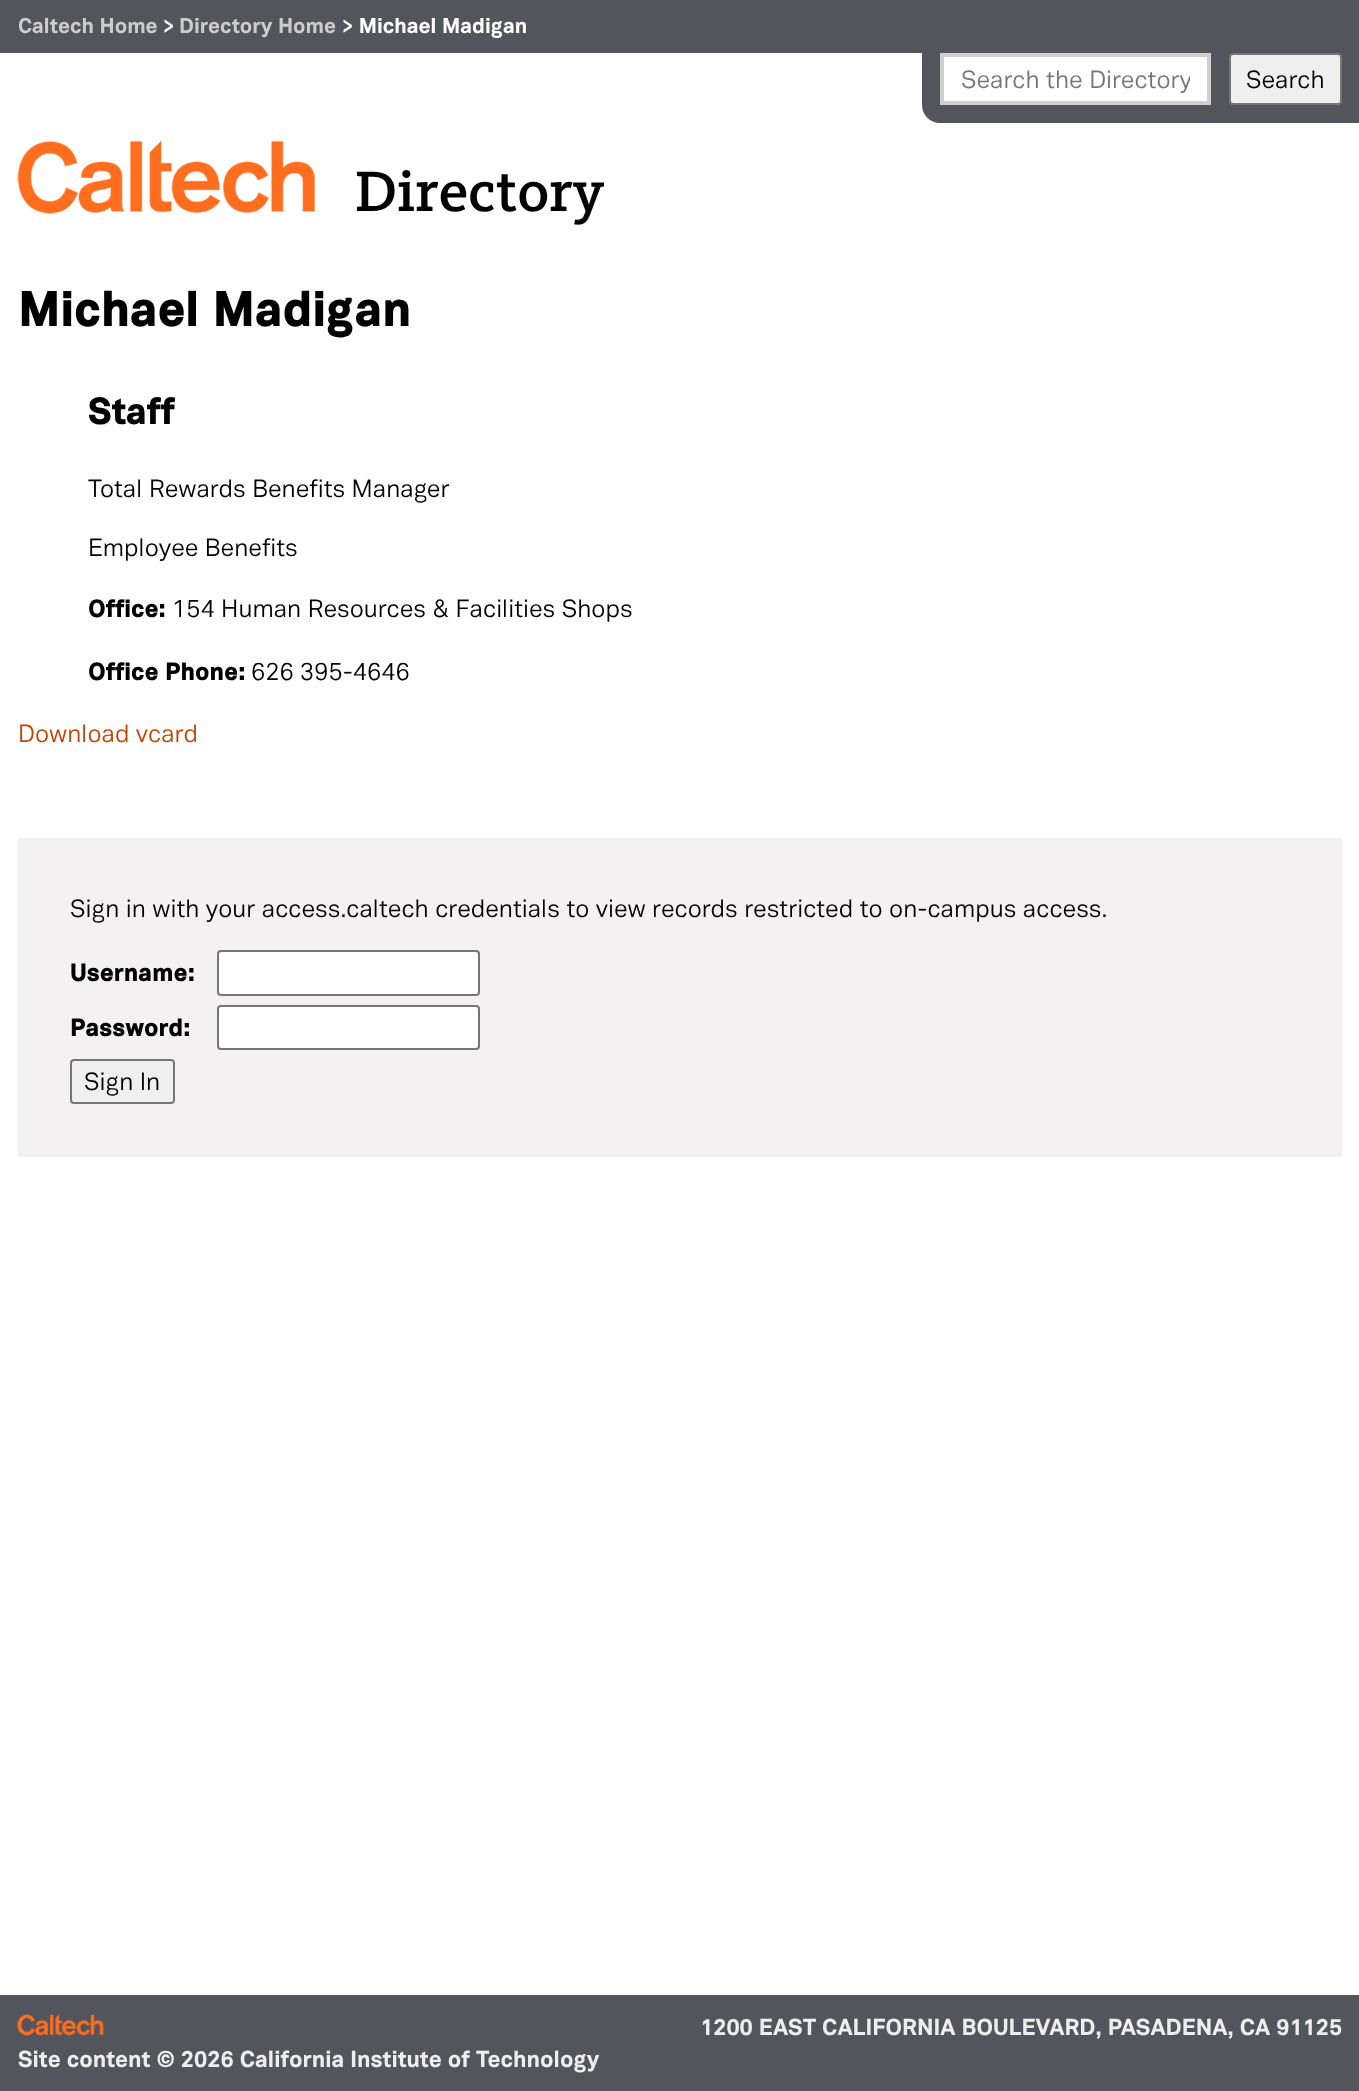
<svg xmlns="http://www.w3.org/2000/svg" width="1359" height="2091">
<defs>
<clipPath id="clip1"><rect x="961" y="61" width="229" height="35"/></clipPath>
</defs>
<rect width="100%" height="100%" fill="#fff"/>
<rect width="1359" height="53" fill="#53555c"/>
<text x="18" y="33" style="font-family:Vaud;font-size:21px;font-weight:800;fill:#ccc">Caltech Home</text>
<text x="163" y="33" style="font-family:Vaud;font-size:21px;font-weight:800;fill:#fff">&gt;</text>
<text x="179" y="33" style="font-family:Vaud;font-size:21px;font-weight:800;fill:#ccc">Directory Home</text>
<text x="342" y="33" style="font-family:Vaud;font-size:21px;font-weight:800;fill:#fff">&gt; Michael Madigan</text>
<path d="M922 53h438v70h-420c-10 0-18-8-18-18z" fill="#53555c"/>
<rect x="942" y="55" width="267" height="48" fill="#fff" stroke="#cfcfcf" stroke-width="4"/>
<g clip-path="url(#clip1)">
<text x="961" y="88" style="font-family:Vaud;font-size:24.5px;fill:#757575">Search the Directory</text>
</g>
<rect x="1230" y="54" width="111" height="50" rx="3" fill="#efefef" stroke="#767676" stroke-width="2"/>
<text x="1246" y="88" style="font-family:Vaud;font-size:24.5px;fill:#000">Search</text>
<image x="17" y="140" width="298" height="74" href="media/1.png"/>
<text x="355" y="211" style="font-family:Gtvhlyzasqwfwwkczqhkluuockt;font-size:59px;font-weight:500;fill:#000">Directory</text>
<text x="18" y="326" style="font-family:Vaud;font-size:49px;font-weight:900;fill:#000">Michael Madigan</text>
<text x="88" y="424" style="font-family:Vaud;font-size:37px;font-weight:900;fill:#000">Staff</text>
<text x="88" y="497" style="font-family:Vaud;font-size:24.5px;fill:#000">Total Rewards Benefits Manager</text>
<text x="88" y="556" style="font-family:Vaud;font-size:24.5px;fill:#000">Employee Benefits</text>
<text x="88" y="617" style="font-family:Vaud;font-size:24.5px;font-weight:900;fill:#000">Office:</text>
<text x="172" y="617" style="font-family:Vaud;font-size:24.5px;fill:#000">154 Human Resources &amp; Facilities Shops</text>
<text x="88" y="680" style="font-family:Vaud;font-size:24.5px;font-weight:900;fill:#000">Office Phone:</text>
<text x="251" y="680" style="font-family:Vaud;font-size:24.5px;fill:#000">626 395-4646</text>
<text x="18" y="742" style="font-family:Vaud;font-size:24.5px;fill:#c24400">Download vcard</text>
<rect x="18" y="838" width="1324" height="319" fill="#f3f1f1"/>
<text x="70" y="917" style="font-family:Vaud;font-size:24.5px;fill:#000">Sign in with your access.caltech credentials to view records restricted to on-campus access.</text>
<text x="70" y="981" style="font-family:Vaud;font-size:24.5px;font-weight:900;fill:#000">Username:</text>
<rect x="218" y="951" width="261" height="44" rx="3" fill="#fff" stroke="#767676" stroke-width="2"/>
<text x="70" y="1036" style="font-family:Vaud;font-size:24.5px;font-weight:900;fill:#000">Password:</text>
<rect x="218" y="1006" width="261" height="43" rx="3" fill="#fff" stroke="#767676" stroke-width="2"/>
<rect x="71" y="1060" width="103" height="43" rx="3" fill="#efefef" stroke="#767676" stroke-width="2"/>
<text x="84" y="1090" style="font-family:Vaud;font-size:24.5px;fill:#000">Sign In</text>
<rect y="1995" width="1359" height="96" fill="#53555c"/>
<image x="17" y="2014" width="87" height="22" href="media/2.png"/>
<text x="700" y="2035" style="font-family:Vaud;font-size:22.75px;font-weight:800;fill:#eee">1200 EAST CALIFORNIA BOULEVARD, PASADENA, CA 91125</text>
<text x="18" y="2067" style="font-family:Vaud;font-size:22.75px;font-weight:800;fill:#eee">Site content © 2026 California Institute of Technology</text>
</svg>
